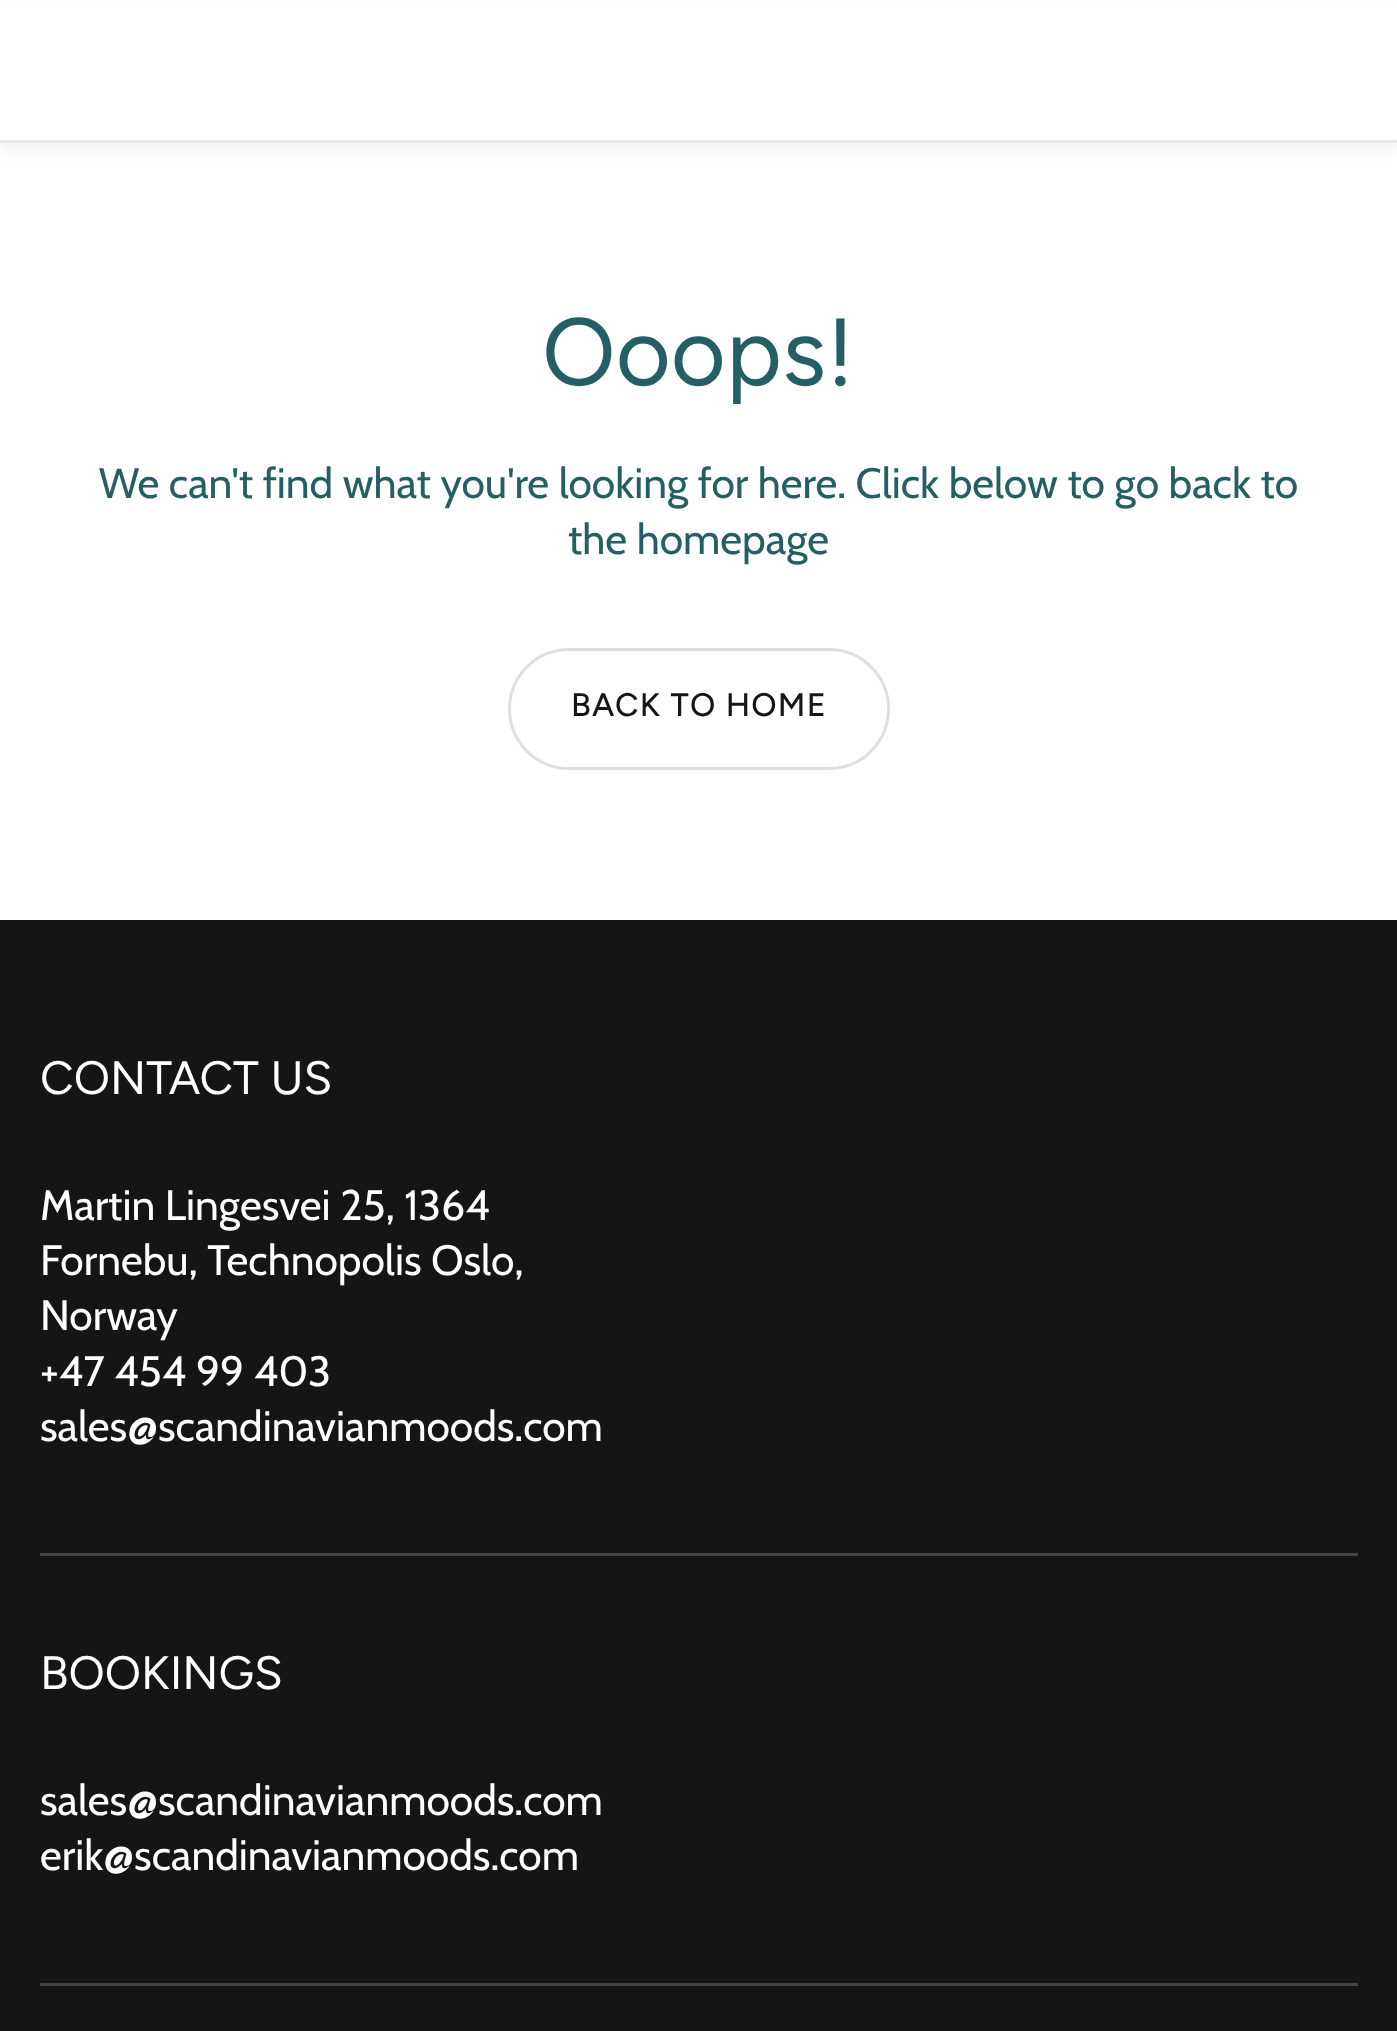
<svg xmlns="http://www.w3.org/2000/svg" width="1397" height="2031">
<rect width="100%" height="100%" fill="#fff"/>
<rect y="8" width="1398" height="142" fill="#0000000d" filter="blur(7.5px)"/>
<rect y="2" width="1397" height="138" fill="#fff"/>
<rect y="140" width="1397" height="3" fill="#e7e7e7"/>
<text x="542" y="385" style="font-family:Figtree;font-size:95px;fill:#245f64">Ooops!</text>
<text x="99" y="498" style="font-family:Cabin;font-size:42.5px;fill:#245f64">We can't find what you're looking for here. Click below to go back to</text>
<text x="568" y="554" style="font-family:Cabin;font-size:42.5px;fill:#245f64">the homepage</text>
<rect x="509.5" y="649.5" width="379" height="119" rx="59.5" fill="none" stroke="#dfdfdf" stroke-width="3"/>
<text x="571" y="716" style="font-family:Figtree;font-size:32.5px;font-weight:500;letter-spacing:1.25px;fill:#151515">BACK TO HOME</text>
<rect y="920" width="1397" height="1111" fill="#151515"/>
<text x="40" y="1094" style="font-family:Figtree;font-size:46.75px;fill:#fff">CONTACT US</text>
<text x="40" y="1220" style="font-family:Cabin;font-size:42.5px;fill:#fff">Martin Lingesvei 25, 1364</text>
<text x="40" y="1275" style="font-family:Cabin;font-size:42.5px;fill:#fff">Fornebu, Technopolis Oslo,</text>
<text x="40" y="1330" style="font-family:Cabin;font-size:42.5px;fill:#fff">Norway</text>
<text x="40" y="1386" style="font-family:Cabin;font-size:42.5px;fill:#fff">+47 454 99 403</text>
<text x="40" y="1441" style="font-family:Cabin;font-size:42.5px;fill:#fff">sales@scandinavianmoods.com</text>
<rect x="40" y="1553" width="1318" height="3" fill="#444"/>
<text x="40" y="1689" style="font-family:Figtree;font-size:46.75px;fill:#fff">BOOKINGS</text>
<text x="40" y="1815" style="font-family:Cabin;font-size:42.5px;fill:#fff">sales@scandinavianmoods.com</text>
<text x="40" y="1870" style="font-family:Cabin;font-size:42.5px;fill:#fff">erik@scandinavianmoods.com</text>
<rect x="40" y="1983" width="1318" height="3" fill="#444"/>
</svg>
